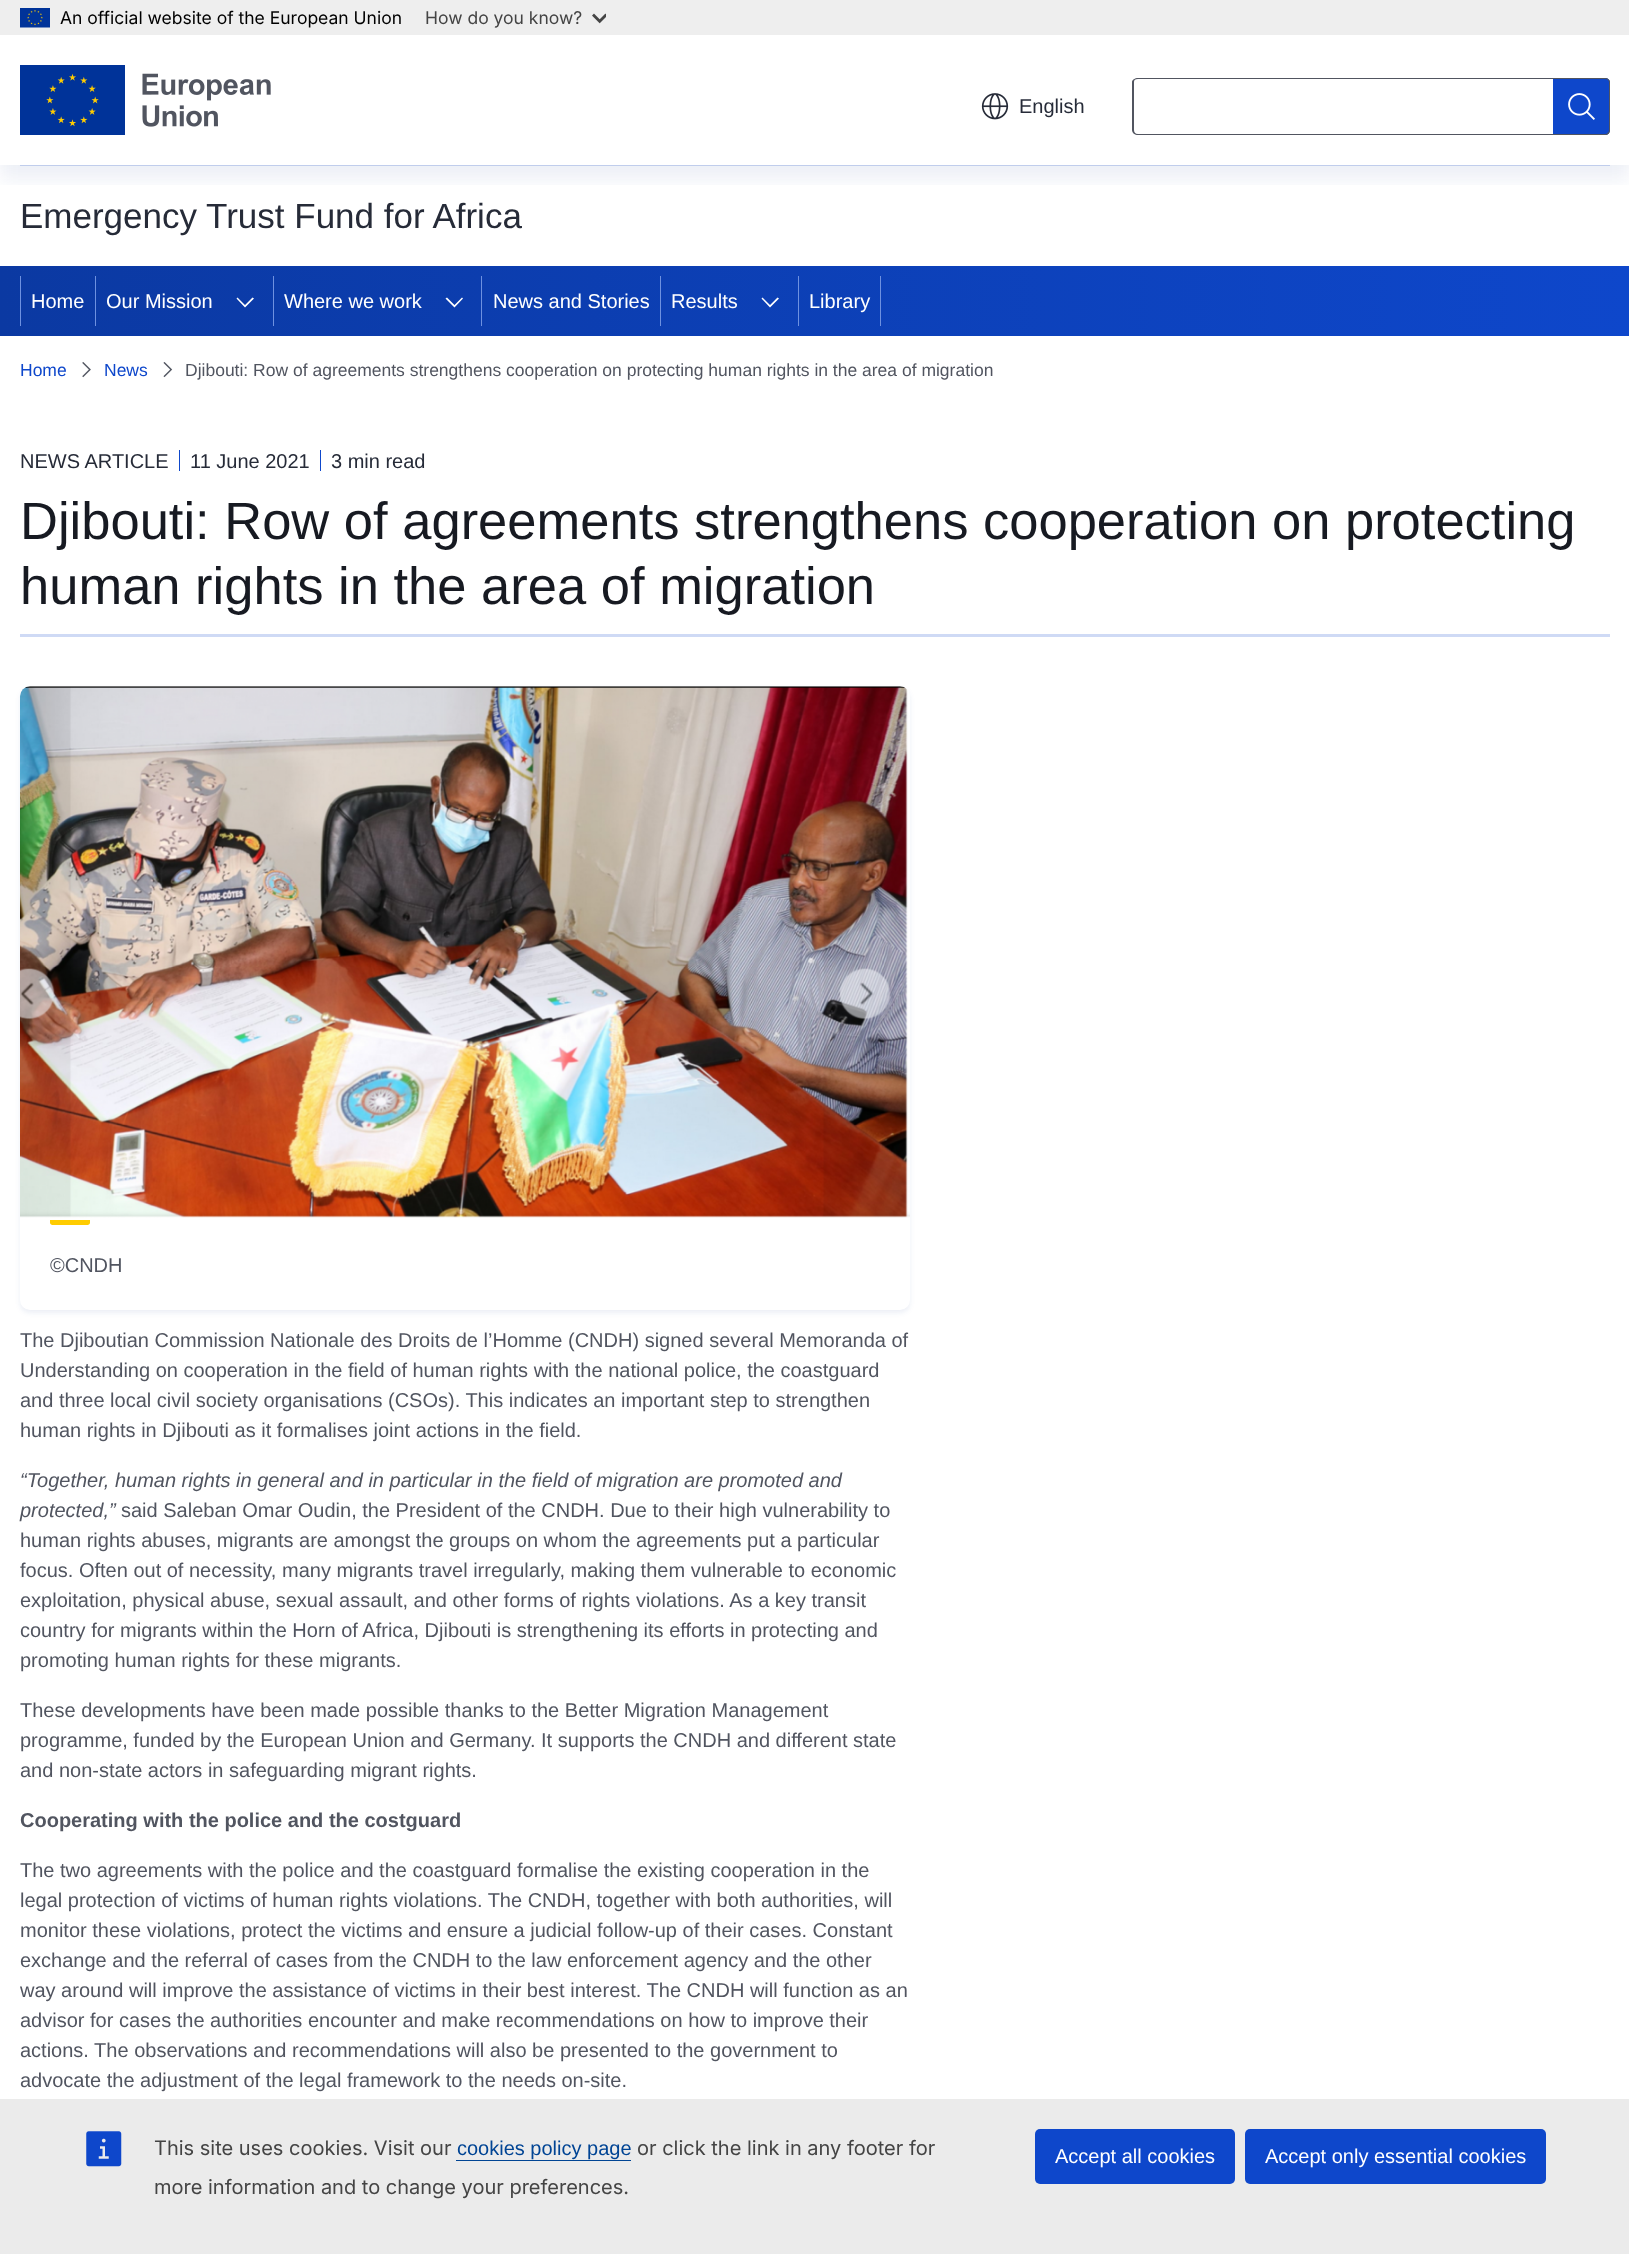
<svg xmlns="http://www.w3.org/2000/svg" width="1629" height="2254">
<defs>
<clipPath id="clip1"><rect x="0" y="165" width="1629" height="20"/></clipPath>
<linearGradient id="g1" gradientUnits="userSpaceOnUse" x1="0" y1="301" x2="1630" y2="301"><stop offset="0" stop-color="#0b39a2"/><stop offset="1" stop-color="#0e47cb"/></linearGradient>
</defs>
<rect width="100%" height="100%" fill="#fff"/>
<rect width="1629" height="35" fill="#eee"/>
<image x="20" y="8" width="30" height="20" href="media/1.png"/>
<text x="60" y="24" style="font-family:Inter;font-size:17.5px;fill:#000">An official website of the European Union</text>
<text x="425" y="24" style="font-family:Inter;font-size:17.5px;fill:#444">How do you know?</text>
<image x="592" y="13" width="14" height="11" href="media/2.png"/>
<rect x="20" y="165" width="1590" height="1" fill="#cfdaf5"/>
<g clip-path="url(#clip1)">
<rect y="49" width="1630" height="130" fill="#09318e14" filter="blur(9.5px)"/>
</g>
<image x="20" y="65" width="251" height="70" href="media/3.png"/>
<image x="981" y="93" width="28" height="27" href="media/4.png"/>
<text x="1019" y="113" style="font-family:Liberation Sans;font-size:20px;fill:#262b38">English</text>
<path d="M1138 78h414v57h-414c-3 0-6-2-6-5v-48c0-2 3-4 6-4zm0 1h414v55h-414c-3 0-4-2-4-4v-48c0-2 1-3 4-3z" fill="#515560" fill-rule="evenodd"/>
<path d="M1553 78h52c3 0 5 2 5 5v47c0 3-2 5-5 5h-52z" fill="#0e47cb"/>
<path d="M1552 78h53c3 0 5 2 5 4v48c0 3-2 5-5 5h-53zm0 1h53c2 0 4 1 4 3v48c0 2-2 4-4 4h-53z" fill="#515560" fill-rule="evenodd"/>
<image x="1568" y="93" width="27" height="27" href="media/5.png"/>
<text x="20" y="228" style="font-family:Liberation Sans;font-size:35px;fill:#262b38">Emergency Trust Fund for Africa</text>
<rect y="266" width="1629" height="70" fill="url(#g1)"/>
<rect x="20" y="276" width="1" height="50" fill="#6e91e0"/>
<text x="31" y="308" style="font-family:Liberation Sans;font-size:20px;fill:#fff">Home</text>
<rect x="95" y="276" width="1" height="50" fill="#6e91e0"/>
<text x="106" y="308" style="font-family:Liberation Sans;font-size:20px;fill:#fff">Our Mission</text>
<path d="M236.5 298.5l1-1l7.5 7.5l7.5-7.5l1.5 1l-9 9z" fill="#fff"/>
<rect x="273" y="276" width="1" height="50" fill="#6e91e0"/>
<text x="284" y="308" style="font-family:Liberation Sans;font-size:20px;fill:#fff">Where we work</text>
<path d="M445.5 298.5l1.5-1l7.5 7.5l7.5-7.5l1 1l-8.5 9z" fill="#fff"/>
<rect x="481" y="276" width="1" height="50" fill="#6e91e0"/>
<text x="493" y="308" style="font-family:Liberation Sans;font-size:20px;fill:#fff">News and Stories</text>
<rect x="660" y="276" width="1" height="50" fill="#6e91e0"/>
<text x="671" y="308" style="font-family:Liberation Sans;font-size:20px;fill:#fff">Results</text>
<path d="M761.5 298.5l1-1l7.5 7.5l7.5-7.5l1.5 1l-9 9z" fill="#fff"/>
<rect x="798" y="276" width="1" height="50" fill="#6e91e0"/>
<text x="809" y="308" style="font-family:Liberation Sans;font-size:20px;fill:#fff">Library</text>
<rect x="880" y="276" width="1" height="50" fill="#6e91e0"/>
<text x="20" y="376" style="font-family:Liberation Sans;font-size:17.5px;fill:#0e47cb">Home</text>
<image x="82" y="362" width="9" height="16" href="media/6.png"/>
<text x="104" y="376" style="font-family:Liberation Sans;font-size:17.5px;fill:#0e47cb">News</text>
<image x="163" y="362" width="10" height="16" href="media/7.png"/>
<text x="185" y="376" style="font-family:Liberation Sans;font-size:17.5px;fill:#515560">Djibouti: Row of agreements strengthens cooperation on protecting human rights in the area of migration</text>
<text x="20" y="468" style="font-family:Liberation Sans;font-size:20px;fill:#262b38">NEWS ARTICLE</text>
<rect x="179" y="450" width="1" height="21" fill="#0e47cb"/>
<text x="190" y="468" style="font-family:Liberation Sans;font-size:20px;fill:#262b38">11 June 2021</text>
<rect x="320" y="450" width="1" height="21" fill="#0e47cb"/>
<text x="331" y="468" style="font-family:Liberation Sans;font-size:20px;fill:#262b38">3 min read</text>
<rect x="20" y="634" width="1590" height="3" fill="#cfdaf5"/>
<text x="20" y="539" style="font-family:Liberation Sans;font-size:52.5px;fill:#171a22">Djibouti: Row of agreements strengthens cooperation on protecting</text>
<text x="20" y="604" style="font-family:Liberation Sans;font-size:52.5px;fill:#171a22">human rights in the area of migration</text>
<rect x="20" y="689" width="890" height="624" rx="10" fill="#09318e14" filter="blur(2.5px)"/>
<rect x="20" y="686" width="890" height="624" rx="10" fill="#fff"/>
<image x="20" y="686" width="890" height="532" href="media/8.png"/>
<path d="M50 1220h40v2.5c0 1.5-1 2.5-2.5 2.5h-35c-1.5 0-2.5-1-2.5-2.5z" fill="#fc0"/>
<text x="50" y="1272" style="font-family:Liberation Sans;font-size:20px;fill:#515560">©CNDH</text>
<text x="20" y="1347" style="font-family:Liberation Sans;font-size:20px;fill:#515560">The Djiboutian Commission Nationale des Droits de l’Homme (CNDH) signed several Memoranda of</text>
<text x="20" y="1377" style="font-family:Liberation Sans;font-size:20px;fill:#515560">Understanding on cooperation in the field of human rights with the national police, the coastguard</text>
<text x="20" y="1407" style="font-family:Liberation Sans;font-size:20px;fill:#515560">and three local civil society organisations (CSOs). This indicates an important step to strengthen</text>
<text x="20" y="1437" style="font-family:Liberation Sans;font-size:20px;fill:#515560">human rights in Djibouti as it formalises joint actions in the field.</text>
<text x="20" y="1487" style="font-family:Liberation Sans;font-size:20px;font-style:italic;fill:#515560">“Together, human rights in general and in particular in the field of migration are promoted and</text>
<text x="20" y="1517" style="font-family:Liberation Sans;font-size:20px;font-style:italic;fill:#515560">protected,”</text>
<text x="121" y="1517" style="font-family:Liberation Sans;font-size:20px;fill:#515560">said Saleban Omar Oudin, the President of the CNDH. Due to their high vulnerability to</text>
<text x="20" y="1547" style="font-family:Liberation Sans;font-size:20px;fill:#515560">human rights abuses, migrants are amongst the groups on whom the agreements put a particular</text>
<text x="20" y="1577" style="font-family:Liberation Sans;font-size:20px;fill:#515560">focus. Often out of necessity, many migrants travel irregularly, making them vulnerable to economic</text>
<text x="20" y="1607" style="font-family:Liberation Sans;font-size:20px;fill:#515560">exploitation, physical abuse, sexual assault, and other forms of rights violations. As a key transit</text>
<text x="20" y="1637" style="font-family:Liberation Sans;font-size:20px;fill:#515560">country for migrants within the Horn of Africa, Djibouti is strengthening its efforts in protecting and</text>
<text x="20" y="1667" style="font-family:Liberation Sans;font-size:20px;fill:#515560">promoting human rights for these migrants.</text>
<text x="20" y="1717" style="font-family:Liberation Sans;font-size:20px;fill:#515560">These developments have been made possible thanks to the Better Migration Management</text>
<text x="20" y="1747" style="font-family:Liberation Sans;font-size:20px;fill:#515560">programme, funded by the European Union and Germany. It supports the CNDH and different state</text>
<text x="20" y="1777" style="font-family:Liberation Sans;font-size:20px;fill:#515560">and non-state actors in safeguarding migrant rights.</text>
<text x="20" y="1827" style="font-family:Liberation Sans;font-size:20px;font-weight:bold;fill:#515560">Cooperating with the police and the costguard</text>
<text x="20" y="1877" style="font-family:Liberation Sans;font-size:20px;fill:#515560">The two agreements with the police and the coastguard formalise the existing cooperation in the</text>
<text x="20" y="1907" style="font-family:Liberation Sans;font-size:20px;fill:#515560">legal protection of victims of human rights violations. The CNDH, together with both authorities, will</text>
<text x="20" y="1937" style="font-family:Liberation Sans;font-size:20px;fill:#515560">monitor these violations, protect the victims and ensure a judicial follow-up of their cases. Constant</text>
<text x="20" y="1967" style="font-family:Liberation Sans;font-size:20px;fill:#515560">exchange and the referral of cases from the CNDH to the law enforcement agency and the other</text>
<text x="20" y="1997" style="font-family:Liberation Sans;font-size:20px;fill:#515560">way around will improve the assistance of victims in their best interest. The CNDH will function as an</text>
<text x="20" y="2027" style="font-family:Liberation Sans;font-size:20px;fill:#515560">advisor for cases the authorities encounter and make recommendations on how to improve their</text>
<text x="20" y="2057" style="font-family:Liberation Sans;font-size:20px;fill:#515560">actions. The observations and recommendations will also be presented to the government to</text>
<text x="20" y="2087" style="font-family:Liberation Sans;font-size:20px;fill:#515560">advocate the adjustment of the legal framework to the needs on-site.</text>
<rect y="2099" width="1629" height="155" fill="#ebebeb"/>
<image x="86" y="2131" width="36" height="36" href="media/9.png"/>
<text x="154" y="2155" style="font-family:Inter;font-size:20px;fill:#444">This site uses cookies. Visit our</text>
<text x="457" y="2155" style="font-family:Liberation Sans;font-size:20px;fill:#004494">cookies policy page</text>
<rect x="456" y="2160" width="175" height="1" fill="#004494"/>
<text x="637" y="2155" style="font-family:Inter;font-size:20px;fill:#444">or click the link in any footer for</text>
<text x="154" y="2194" style="font-family:Inter;font-size:20px;fill:#444">more information and to change your preferences.</text>
<rect x="1035" y="2129" width="200" height="55" rx="5" fill="#0e47cb"/>
<text x="1055" y="2163" style="font-family:Liberation Sans;font-size:20px;fill:#fff">Accept all cookies</text>
<rect x="1245" y="2129" width="301" height="55" rx="5" fill="#0e47cb"/>
<text x="1265" y="2163" style="font-family:Liberation Sans;font-size:20px;fill:#fff">Accept only essential cookies</text>
</svg>
